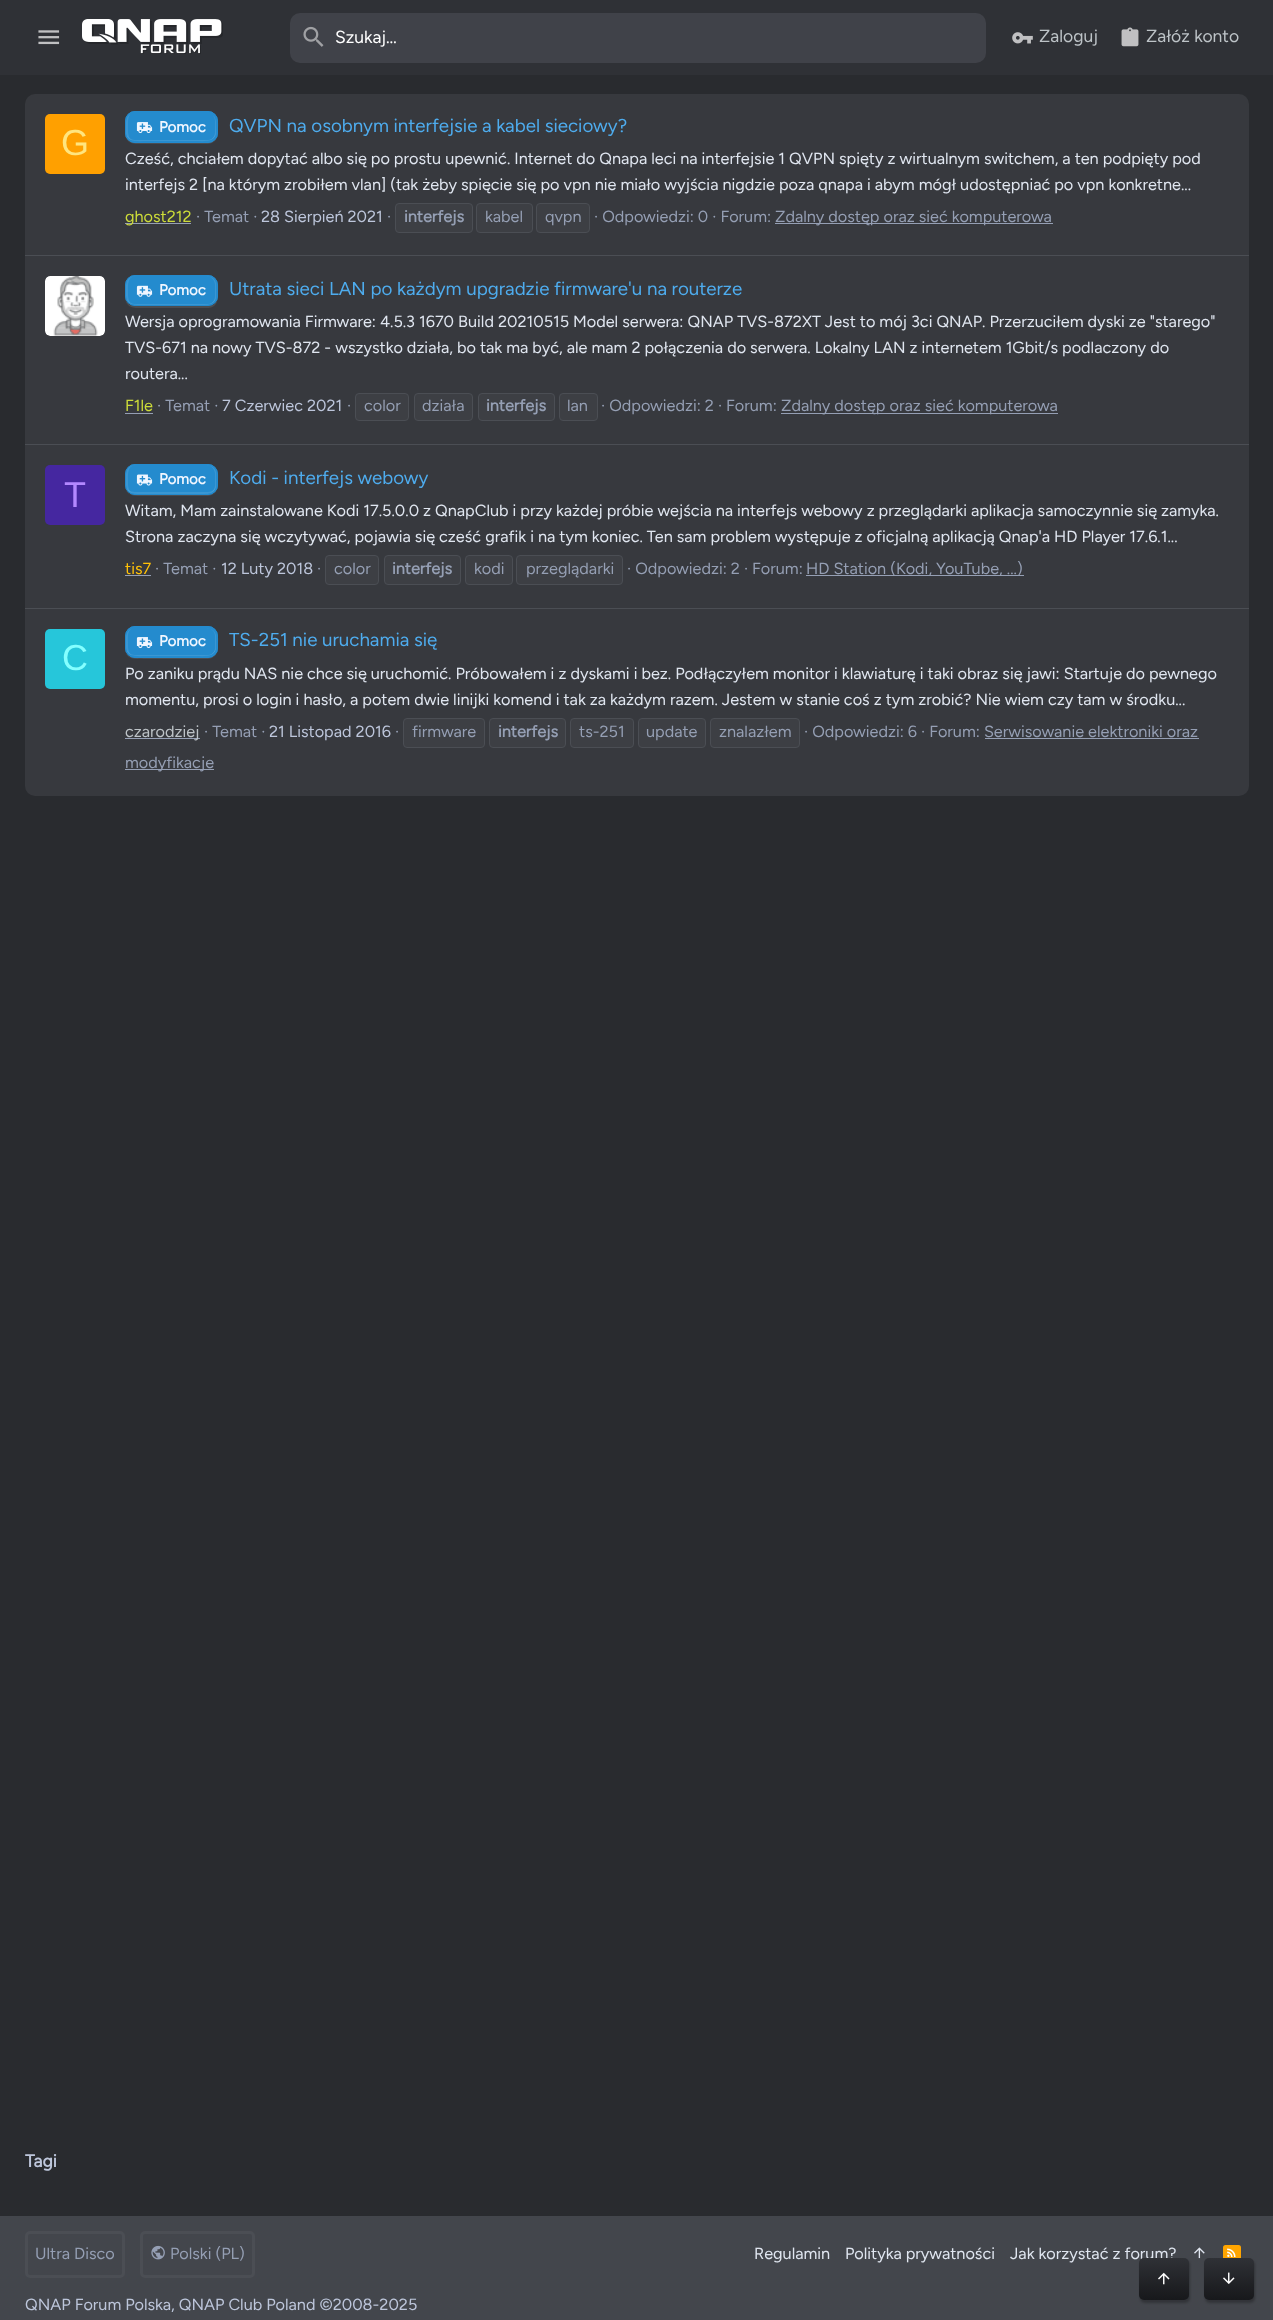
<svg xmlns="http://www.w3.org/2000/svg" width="1273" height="2320">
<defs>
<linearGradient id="g1" gradientUnits="userSpaceOnUse" x1="1164" y1="2258" x2="1164" y2="2300"><stop offset="0" stop-color="#2f3136"/><stop offset="1" stop-color="#17181b"/></linearGradient>
<linearGradient id="g2" gradientUnits="userSpaceOnUse" x1="1229" y1="2258" x2="1229" y2="2300"><stop offset="0" stop-color="#2f3136"/><stop offset="1" stop-color="#17181b"/></linearGradient>
</defs>
<rect width="100%" height="100%" fill="#292b2f"/>
<rect width="1273" height="75" fill="#2f3136"/>
<image x="38" y="30" width="22" height="15" href="media/1.png"/>
<image x="82" y="19" width="141" height="35" href="media/2.png"/>
<rect x="290" y="13" width="696" height="50" rx="10" fill="#404249"/>
<image x="303" y="26" width="21" height="21" href="media/3.png"/>
<text x="335" y="43" style="font-family:Figtree;font-size:17.5px;font-weight:300;fill:#fff">Szukaj…</text>
<image x="1012" y="32" width="21" height="12" href="media/4.png"/>
<text x="1039" y="42" style="font-family:Figtree;font-size:17.5px;font-weight:300;fill:#bdc3c7">Zaloguj</text>
<image x="1121" y="27" width="18" height="20" href="media/5.png"/>
<text x="1146" y="42" style="font-family:Figtree;font-size:17.5px;font-weight:300;fill:#bdc3c7">Załóż konto</text>
<rect x="25" y="94" width="1224" height="702" rx="10" fill="#37393e"/>
<rect x="45" y="114" width="60" height="60" rx="5" fill="#ffa000"/>
<text x="61" y="155" style="font-family:Liberation Sans;font-size:36px;fill:#ffe57f">G</text>
<path d="M125 132c0 14 12 12 22 12h49c13 0 22 2 22-14c0-3 1-7-1-11l1 10c0 16-9 13-23 13h-48c-8 0-22 3-22-10z" fill="#4b4d51"/>
<rect x="125" y="111" width="93" height="32" rx="10" fill="#248bce"/>
<path d="M126 131c0 12 12 10 21 10h48c9 0 21 2 21-10c0 5-4 9-8 9h-73c-5 0-9-4-9-9z" fill="#3a97d3"/>
<path d="M206 141c4.5 0 9-2.5 10-7v-7c0-4.5 .5-8.5-3-12c1 2 2 4 2 6v11c0 5-4 9-9 9z" fill="#ffffff1a"/>
<path d="M130.5 114c-5 3-4.5 8-4.5 13v7c1 4.5 5.5 7 10 7c-8.5 0-8-8.5-8-14.5c0-4-.5-9 2.5-12.5z" fill="#ffffff1a"/>
<rect x="125.5" y="111.5" width="92" height="31" rx="9.5" fill="none" stroke="#248bce"/>
<image x="136" y="122" width="17" height="12" href="media/6.png"/>
<text x="159" y="132" style="font-family:Figtree;font-size:15px;font-weight:bold;fill:#f0f6ff">Pomoc</text>
<text x="229" y="132" style="font-family:Figtree;font-size:18.75px;font-weight:300;fill:#4eacee">QVPN na osobnym interfejsie a kabel sieciowy?</text>
<text x="125" y="164" style="font-family:Figtree;font-size:16.25px;font-weight:300;fill:#e0e6f0">Cześć, chciałem dopytać albo się po prostu upewnić. Internet do Qnapa leci na interfejsie 1 QVPN spięty z wirtualnym switchem, a ten podpięty pod</text>
<text x="125" y="190" style="font-family:Figtree;font-size:16.25px;font-weight:300;fill:#e0e6f0">interfejs 2 [na którym zrobiłem vlan] (tak żeby spięcie się po vpn nie miało wyjścia nigdzie poza qnapa i abym mógł udostępniać po vpn konkretne...</text>
<rect x="125" y="223" width="66" height="1" fill="#959fb4"/>
<text x="125" y="222" style="font-family:Figtree;font-size:16.25px;font-weight:300;fill:#cddc39">ghost212</text>
<text x="196" y="222" style="font-family:Figtree;font-size:16.25px;font-weight:300;fill:#959fb4">· Temat ·</text>
<text x="261" y="222" style="font-family:Figtree;font-size:16.25px;font-weight:300;fill:#bdc6db">28 Sierpień 2021</text>
<text x="387" y="222" style="font-family:Figtree;font-size:16.25px;font-weight:300;fill:#959fb4">·</text>
<rect x="395.5" y="203.5" width="77" height="29" rx="3.5" fill="#3d3f44" stroke="#4b4e54"/>
<text x="404" y="222" style="font-family:Figtree;font-size:16.25px;font-weight:bold;fill:#959fb4">interfejs</text>
<rect x="476.5" y="203.5" width="56" height="29" rx="3.5" fill="#3d3f44" stroke="#4b4e54"/>
<text x="485" y="222" style="font-family:Figtree;font-size:16.25px;font-weight:300;fill:#959fb4">kabel</text>
<rect x="536.5" y="203.5" width="53" height="29" rx="3.5" fill="#3d3f44" stroke="#4b4e54"/>
<text x="545" y="222" style="font-family:Figtree;font-size:16.25px;font-weight:300;fill:#959fb4">qvpn</text>
<text x="594" y="222" style="font-family:Figtree;font-size:16.25px;font-weight:300;fill:#959fb4">· Odpowiedzi: 0 · Forum:</text>
<rect x="775" y="223" width="278" height="1" fill="#959fb4"/>
<text x="775" y="222" style="font-family:Figtree;font-size:16.25px;font-weight:300;fill:#959fb4">Zdalny dostęp oraz sieć komputerowa</text>
<rect x="25" y="255" width="1224" height="1" fill="#4b4e54"/>
<image x="45" y="276" width="60" height="60" href="media/7.png"/>
<path d="M125 296c0 14 12 12 22 12h49c14 0 22 2 22-14c0-4 1-9-1-13l1 4v11c0 6-5 10-10 10h-73c-6 0-10-4-10-10z" fill="#4b4d51"/>
<rect x="125" y="275" width="93" height="31" rx="10" fill="#248bce"/>
<path d="M126 295c0 12 12 10 21 10h48c9 0 21 2 21-10c0 5-4 9-8 9h-73c-5 0-9-4-9-9z" fill="#3a97d3"/>
<path d="M206 305c4.5 0 9-2.5 10-7v-15c-1-4.5-5.5-7-10-7c5 0 9 4 9 9v11c0 5-4 9-9 9z" fill="#ffffff1a"/>
<path d="M135 276c-5 0-9 4-9 9v11c0 5 4 9 9 9h1c-8.5 0-8-8.5-8-14.5c0-6-.5-14.5 8-14.5z" fill="#ffffff1a"/>
<rect x="125.5" y="275.5" width="92" height="30" rx="9.5" fill="none" stroke="#248bce"/>
<image x="136" y="285" width="17" height="12" href="media/8.png"/>
<text x="159" y="295" style="font-family:Figtree;font-size:15px;font-weight:bold;fill:#f0f6ff">Pomoc</text>
<text x="229" y="295" style="font-family:Figtree;font-size:18.75px;font-weight:300;fill:#4eacee">Utrata sieci LAN po każdym upgradzie firmware'u na routerze</text>
<text x="125" y="327" style="font-family:Figtree;font-size:16.25px;font-weight:300;fill:#e0e6f0">Wersja oprogramowania Firmware: 4.5.3 1670 Build 20210515 Model serwera: QNAP TVS-872XT Jest to mój 3ci QNAP. Przerzuciłem dyski ze "starego"</text>
<text x="125" y="353" style="font-family:Figtree;font-size:16.25px;font-weight:300;fill:#e0e6f0">TVS-671 na nowy TVS-872 - wszystko działa, bo tak ma być, ale mam 2 połączenia do serwera. Lokalny LAN z internetem 1Gbit/s podlaczony do</text>
<text x="125" y="379" style="font-family:Figtree;font-size:16.25px;font-weight:300;fill:#e0e6f0">routera...</text>
<text x="125" y="411" style="font-family:Figtree;font-size:16.25px;font-weight:300;fill:#cddc39">F1le</text>
<rect x="125" y="413" width="28" height="1" fill="#959fb4"/>
<text x="157" y="411" style="font-family:Figtree;font-size:16.25px;font-weight:300;fill:#959fb4">· Temat ·</text>
<text x="222" y="411" style="font-family:Figtree;font-size:16.25px;font-weight:300;fill:#bdc6db">7 Czerwiec 2021</text>
<text x="347" y="411" style="font-family:Figtree;font-size:16.25px;font-weight:300;fill:#959fb4">·</text>
<rect x="355.5" y="393.5" width="53" height="27" rx="3.5" fill="#3d3f44" stroke="#4b4e54"/>
<text x="364" y="411" style="font-family:Figtree;font-size:16.25px;font-weight:300;fill:#959fb4">color</text>
<rect x="414.5" y="393.5" width="58" height="27" rx="3.5" fill="#3d3f44" stroke="#4b4e54"/>
<text x="422" y="411" style="font-family:Figtree;font-size:16.25px;font-weight:300;fill:#959fb4">działa</text>
<rect x="478.5" y="393.5" width="76" height="27" rx="3.5" fill="#3d3f44" stroke="#4b4e54"/>
<text x="486" y="411" style="font-family:Figtree;font-size:16.25px;font-weight:bold;fill:#959fb4">interfejs</text>
<rect x="559.5" y="393.5" width="38" height="27" rx="3.5" fill="#3d3f44" stroke="#4b4e54"/>
<text x="567" y="411" style="font-family:Figtree;font-size:16.25px;font-weight:300;fill:#959fb4">lan</text>
<text x="601" y="411" style="font-family:Figtree;font-size:16.25px;font-weight:300;fill:#959fb4">· Odpowiedzi: 2 · Forum:</text>
<rect x="781" y="413" width="277" height="1" fill="#959fb4"/>
<text x="781" y="411" style="font-family:Figtree;font-size:16.25px;font-weight:300;fill:#959fb4">Zdalny dostęp oraz sieć komputerowa</text>
<rect x="25" y="444" width="1224" height="1" fill="#4b4e54"/>
<rect x="45" y="465" width="60" height="60" rx="5" fill="#4527a0"/>
<text x="64" y="507" style="font-family:Liberation Sans;font-size:36px;fill:#b388ff">T</text>
<path d="M125 485c0 13 13 11 22 11h49c13 0 22 2 22-14c0-3 1-8-1-11l1 3v11c0 6-5 10-10 10h-73c-6 0-10-4-10-10z" fill="#4b4d51"/>
<rect x="125" y="464" width="93" height="31" rx="10" fill="#248bce"/>
<path d="M126 484c0 12 12 10 21 10h48c9 0 21 2 21-10c0 5-4 8-8 8h-73c-5 0-9-3-9-8z" fill="#3a97d3"/>
<path d="M206 494c4.5 0 9-2.5 10-7v-15c-1-4.5-5.5-7-10-7c5 0 9 4 9 9v11c0 5-4 9-9 9z" fill="#ffffff1a"/>
<path d="M135 465c-5 0-9 4-9 9v11c0 5 4 9 9 9h1c-8.5 0-8-8.5-8-14.5c0-6-.5-14.5 8-14.5z" fill="#ffffff1a"/>
<rect x="125.5" y="464.5" width="92" height="30" rx="9.5" fill="none" stroke="#248bce"/>
<image x="136" y="474" width="17" height="12" href="media/9.png"/>
<text x="159" y="484" style="font-family:Figtree;font-size:15px;font-weight:bold;fill:#f0f6ff">Pomoc</text>
<text x="229" y="484" style="font-family:Figtree;font-size:18.75px;font-weight:300;fill:#4eacee">Kodi - interfejs webowy</text>
<text x="125" y="516" style="font-family:Figtree;font-size:16.25px;font-weight:300;fill:#e0e6f0">Witam, Mam zainstalowane Kodi 17.5.0.0 z QnapClub i przy każdej próbie wejścia na interfejs webowy z przeglądarki aplikacja samoczynnie się zamyka.</text>
<text x="125" y="542" style="font-family:Figtree;font-size:16.25px;font-weight:300;fill:#e0e6f0">Strona zaczyna się wczytywać, pojawia się cześć grafik i na tym koniec. Ten sam problem występuje z oficjalną aplikacją Qnap'a HD Player 17.6.1...</text>
<text x="125" y="574" style="font-family:Figtree;font-size:16.25px;font-weight:300;fill:#ffc107">tis7</text>
<rect x="125" y="575" width="26" height="1" fill="#959fb4"/>
<text x="155" y="574" style="font-family:Figtree;font-size:16.25px;font-weight:300;fill:#959fb4">· Temat ·</text>
<text x="221" y="574" style="font-family:Figtree;font-size:16.25px;font-weight:300;fill:#bdc6db">12 Luty 2018</text>
<text x="317" y="574" style="font-family:Figtree;font-size:16.25px;font-weight:300;fill:#959fb4">·</text>
<rect x="325.5" y="555.5" width="53" height="29" rx="3.5" fill="#3d3f44" stroke="#4b4e54"/>
<text x="334" y="574" style="font-family:Figtree;font-size:16.25px;font-weight:300;fill:#959fb4">color</text>
<rect x="384.5" y="555.5" width="76" height="29" rx="3.5" fill="#3d3f44" stroke="#4b4e54"/>
<text x="392" y="574" style="font-family:Figtree;font-size:16.25px;font-weight:bold;fill:#959fb4">interfejs</text>
<rect x="465.5" y="555.5" width="47" height="29" rx="3.5" fill="#3d3f44" stroke="#4b4e54"/>
<text x="474" y="574" style="font-family:Figtree;font-size:16.25px;font-weight:300;fill:#959fb4">kodi</text>
<rect x="516.5" y="555.5" width="106" height="29" rx="3.5" fill="#3d3f44" stroke="#4b4e54"/>
<text x="526" y="574" style="font-family:Figtree;font-size:16.25px;font-weight:300;fill:#959fb4">przeglądarki</text>
<text x="627" y="574" style="font-family:Figtree;font-size:16.25px;font-weight:300;fill:#959fb4">· Odpowiedzi: 2 · Forum:</text>
<rect x="806" y="575" width="218" height="1" fill="#959fb4"/>
<text x="806" y="574" style="font-family:Figtree;font-size:16.25px;font-weight:300;fill:#959fb4">HD Station (Kodi, YouTube, ...)</text>
<rect x="25" y="608" width="1224" height="1" fill="#4b4e54"/>
<rect x="45" y="629" width="60" height="60" rx="5" fill="#26c6da"/>
<text x="62" y="670" style="font-family:Liberation Sans;font-size:36px;fill:#84ffff">C</text>
<path d="M125 648c0 13 12 11 22 11h49c13 0 22 2 22-14c0-3 1-7-1-11l1 10c0 16-9 14-23 14h-48c-8 0-22 2-22-10z" fill="#4b4d51"/>
<rect x="125" y="626" width="93" height="32" rx="10" fill="#248bce"/>
<path d="M126 646c0 12 12 10 21 10h48c9 0 21 2 21-10c0 5-4 9-8 9h-73c-5 0-9-4-9-9z" fill="#3a97d3"/>
<path d="M206 656c4.5 0 9-2.5 10-7v-14c-1-4.5-5.5-7-10-7c5 0 9 3 9 8v12c0 4-4 8-9 8z" fill="#ffffff1a"/>
<path d="M135 628c-5 0-9 4-9 9v10c0 5 4 9 9 9h1c-8.5 0-8-8-8-14c0-6.5-1-14 8-14z" fill="#ffffff1a"/>
<rect x="125.5" y="626.5" width="92" height="31" rx="9.5" fill="none" stroke="#248bce"/>
<image x="136" y="637" width="17" height="12" href="media/6.png"/>
<text x="159" y="646" style="font-family:Figtree;font-size:15px;font-weight:bold;fill:#f0f6ff">Pomoc</text>
<text x="229" y="646" style="font-family:Figtree;font-size:18.75px;font-weight:300;fill:#4eacee">TS-251 nie uruchamia się</text>
<text x="125" y="679" style="font-family:Figtree;font-size:16.25px;font-weight:300;fill:#e0e6f0">Po zaniku prądu NAS nie chce się uruchomić. Próbowałem i z dyskami i bez. Podłączyłem monitor i klawiaturę i taki obraz się jawi: Startuje do pewnego</text>
<text x="125" y="705" style="font-family:Figtree;font-size:16.25px;font-weight:300;fill:#e0e6f0">momentu, prosi o login i hasło, a potem dwie linijki komend i tak za każdym razem. Jestem w stanie coś z tym zrobić? Nie wiem czy tam w środku...</text>
<rect x="125" y="738" width="75" height="1" fill="#959fb4"/>
<text x="125" y="737" style="font-family:Figtree;font-size:16.25px;font-weight:300;fill:#bdc3c7">czarodziej</text>
<text x="204" y="737" style="font-family:Figtree;font-size:16.25px;font-weight:300;fill:#959fb4">· Temat ·</text>
<text x="269" y="737" style="font-family:Figtree;font-size:16.25px;font-weight:300;fill:#bdc6db">21 Listopad 2016</text>
<text x="395" y="737" style="font-family:Figtree;font-size:16.25px;font-weight:300;fill:#959fb4">·</text>
<rect x="403.5" y="718.5" width="81" height="29" rx="3.5" fill="#3d3f44" stroke="#4b4e54"/>
<text x="412" y="737" style="font-family:Figtree;font-size:16.25px;font-weight:300;fill:#959fb4">firmware</text>
<rect x="489.5" y="718.5" width="76" height="29" rx="3.5" fill="#3d3f44" stroke="#4b4e54"/>
<text x="498" y="737" style="font-family:Figtree;font-size:16.25px;font-weight:bold;fill:#959fb4">interfejs</text>
<rect x="570.5" y="718.5" width="63" height="29" rx="3.5" fill="#3d3f44" stroke="#4b4e54"/>
<text x="579" y="737" style="font-family:Figtree;font-size:16.25px;font-weight:300;fill:#959fb4">ts-251</text>
<rect x="638.5" y="718.5" width="67" height="29" rx="3.5" fill="#3d3f44" stroke="#4b4e54"/>
<text x="646" y="737" style="font-family:Figtree;font-size:16.25px;font-weight:300;fill:#959fb4">update</text>
<rect x="710.5" y="718.5" width="89" height="29" rx="3.5" fill="#3d3f44" stroke="#4b4e54"/>
<text x="719" y="737" style="font-family:Figtree;font-size:16.25px;font-weight:300;fill:#959fb4">znalazłem</text>
<text x="804" y="737" style="font-family:Figtree;font-size:16.25px;font-weight:300;fill:#959fb4">· Odpowiedzi: 6 · Forum: Serwisowanie elektroniki oraz</text>
<rect x="125" y="769" width="89" height="1" fill="#959fb4"/>
<text x="125" y="768" style="font-family:Figtree;font-size:16.25px;font-weight:300;fill:#959fb4">modyfikacje</text>
<rect x="985" y="738" width="214" height="1" fill="#959fb4"/>
<text x="25" y="2167" style="font-family:Figtree;font-size:17.5px;font-weight:bold;fill:#bdc6db">Tagi</text>
<rect y="2216" width="1273" height="104" fill="#43464c"/>
<rect x="26.5" y="2232.5" width="97" height="44" rx="3.5" fill="none" stroke="#4b4e54" stroke-width="3"/>
<text x="35" y="2259" style="font-family:Figtree;font-size:16.25px;font-weight:300;fill:#959fb4">Ultra Disco</text>
<rect x="141.5" y="2232.5" width="112" height="44" rx="3.5" fill="none" stroke="#4b4e54" stroke-width="3"/>
<image x="151" y="2245" width="14" height="15" href="media/10.png"/>
<text x="170" y="2259" style="font-family:Figtree;font-size:16.25px;font-weight:300;fill:#959fb4">Polski (PL)</text>
<text x="754" y="2259" style="font-family:Figtree;font-size:16.25px;font-weight:300;fill:#e0e6f0">Regulamin</text>
<text x="845" y="2259" style="font-family:Figtree;font-size:16.25px;font-weight:300;fill:#e0e6f0">Polityka prywatności</text>
<text x="1010" y="2259" style="font-family:Figtree;font-size:16.25px;font-weight:300;fill:#e0e6f0">Jak korzystać z forum?</text>
<image x="1194" y="2247" width="11" height="12" href="media/11.png"/>
<rect x="1223" y="2245" width="18" height="19" rx="2.5" fill="#ffa500"/>
<image x="1227" y="2248" width="9" height="9" href="media/12.png"/>
<text x="25" y="2310" style="font-family:Figtree;font-size:16.25px;font-weight:300;fill:#bdc6db">QNAP Forum Polska, QNAP Club Poland ©2008-2025</text>
<rect x="1140" y="2260" width="50" height="43" rx="5" fill="#00000040" filter="blur(1px)"/>
<rect x="1139" y="2258" width="50" height="42" rx="5" fill="url(#g1)"/>
<image x="1158" y="2272" width="12" height="13" href="media/13.png"/>
<rect x="1205" y="2260" width="50" height="43" rx="5" fill="#00000040" filter="blur(1px)"/>
<rect x="1204" y="2258" width="50" height="42" rx="5" fill="url(#g2)"/>
<image x="1223" y="2272" width="12" height="12" href="media/14.png"/>
</svg>
